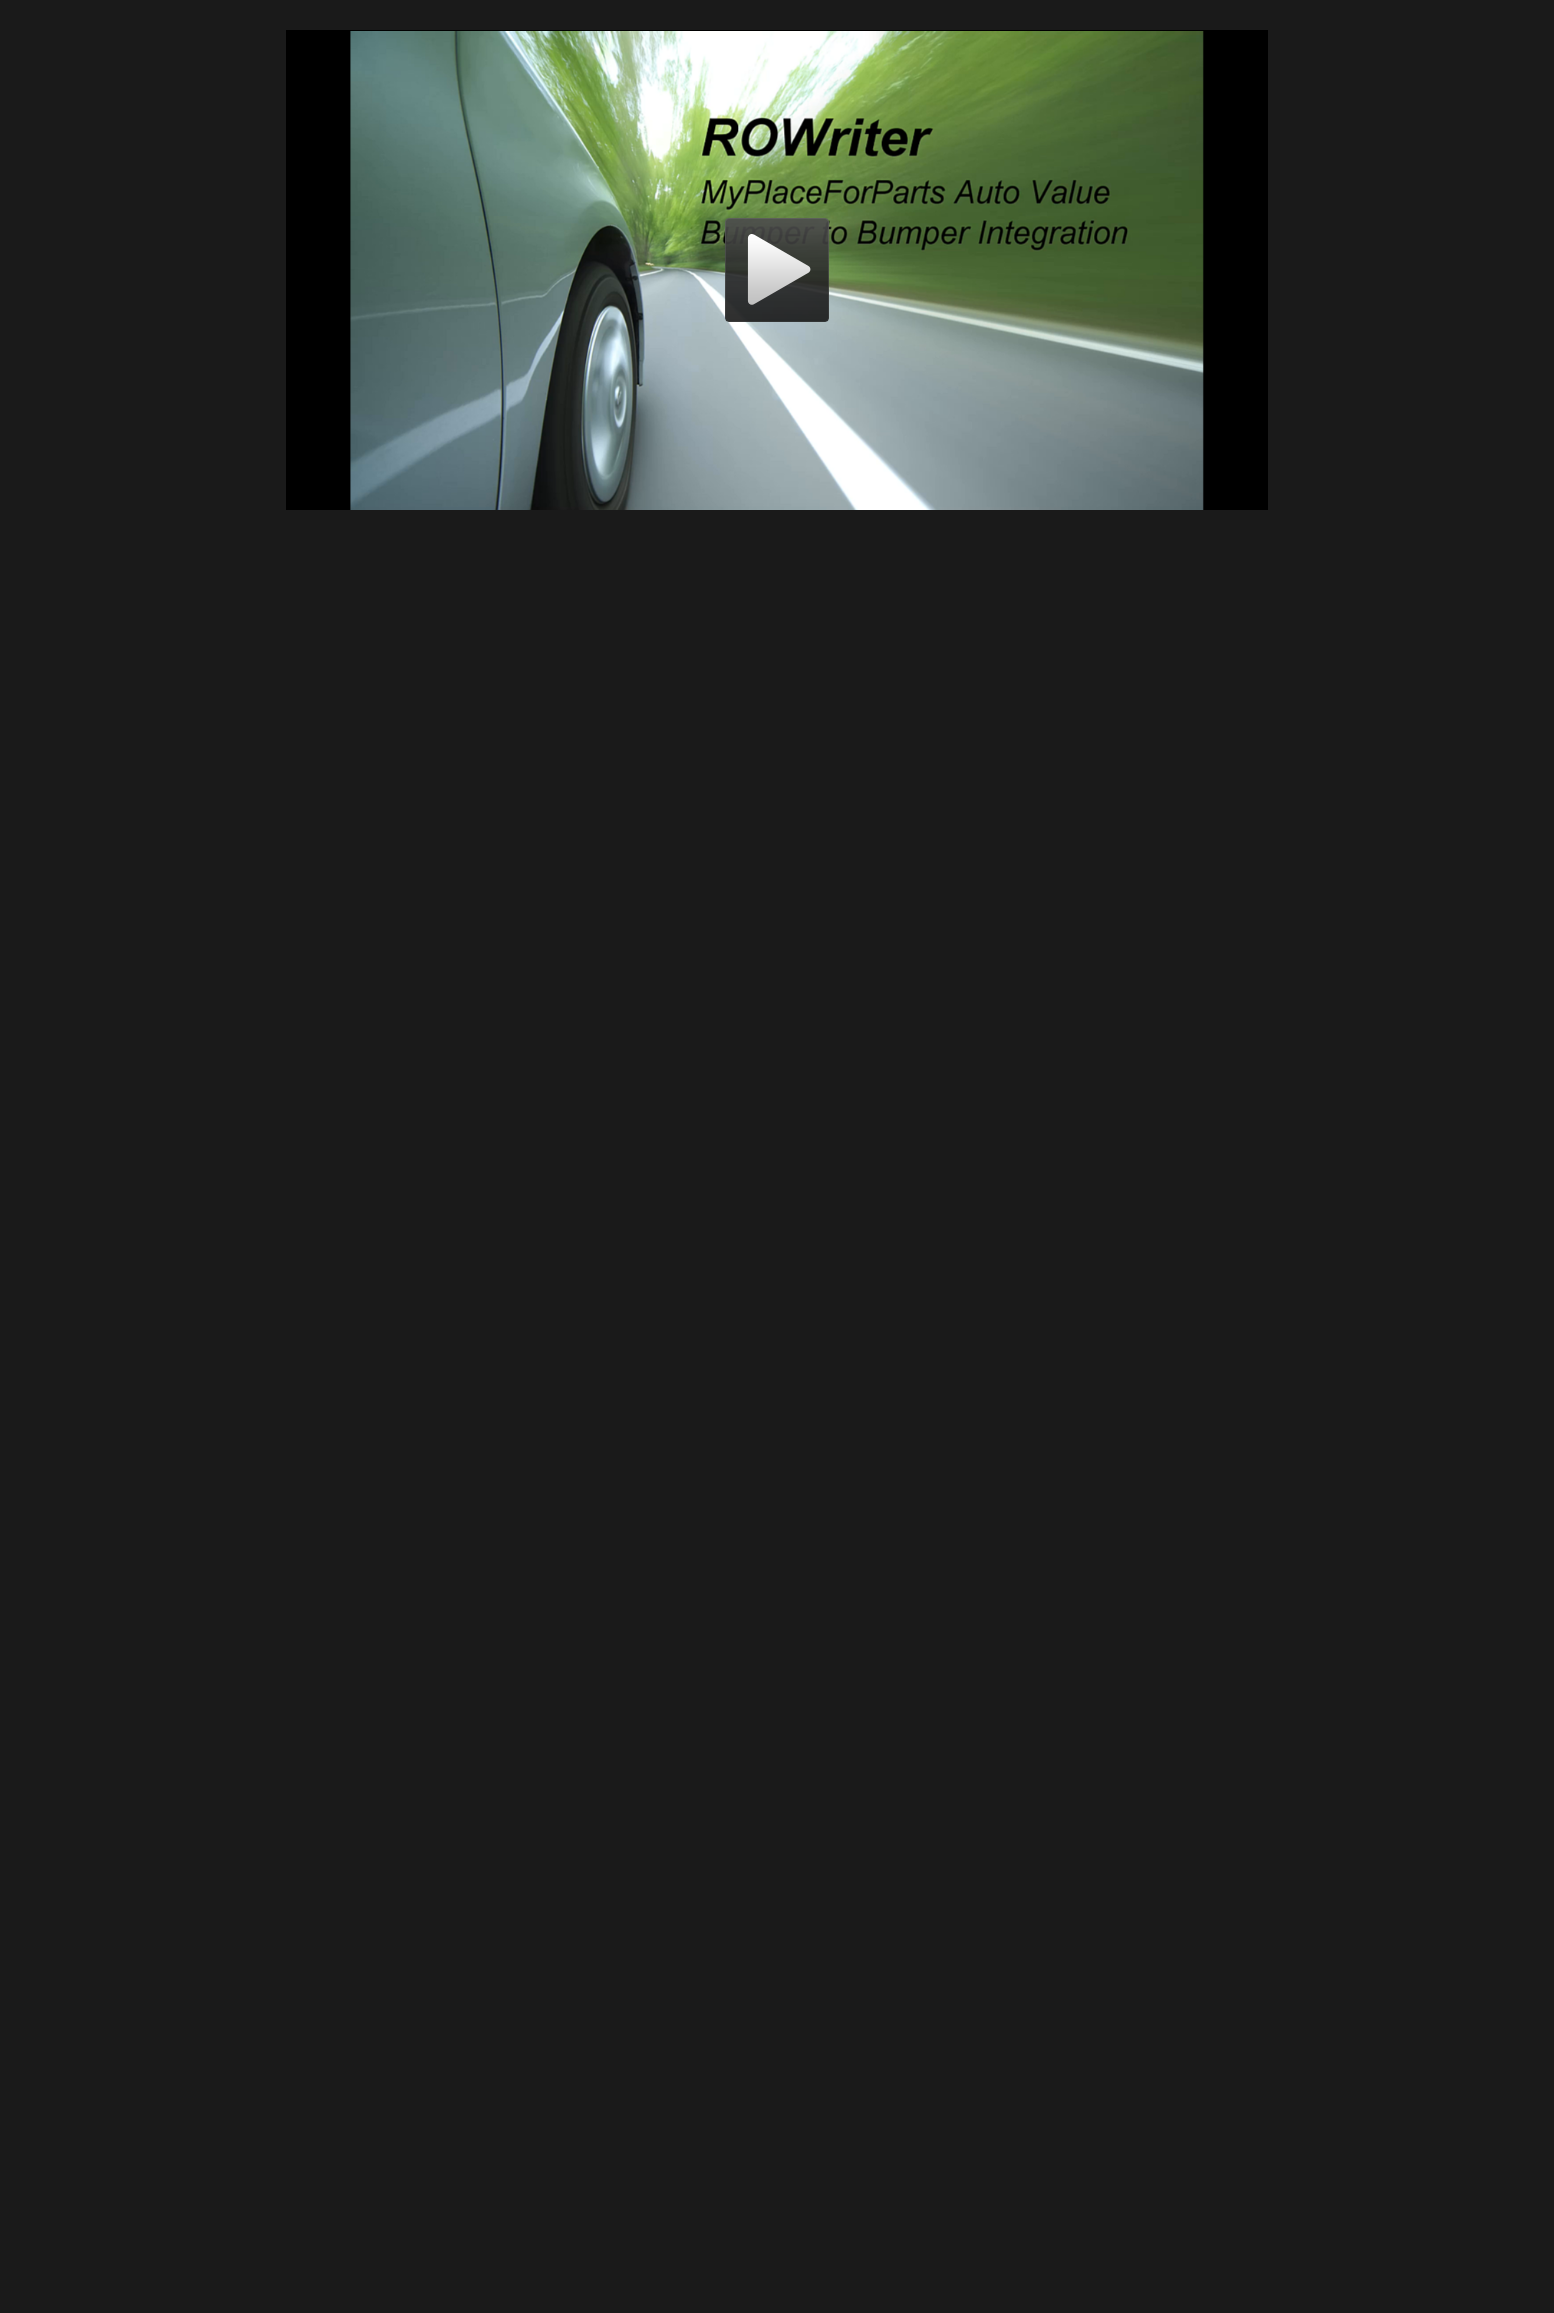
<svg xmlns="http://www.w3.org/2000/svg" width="1554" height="2313">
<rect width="100%" height="100%" fill="#1a1a1a"/>
<image x="286" y="30" width="982" height="480" href="media/1.png"/>
</svg>
